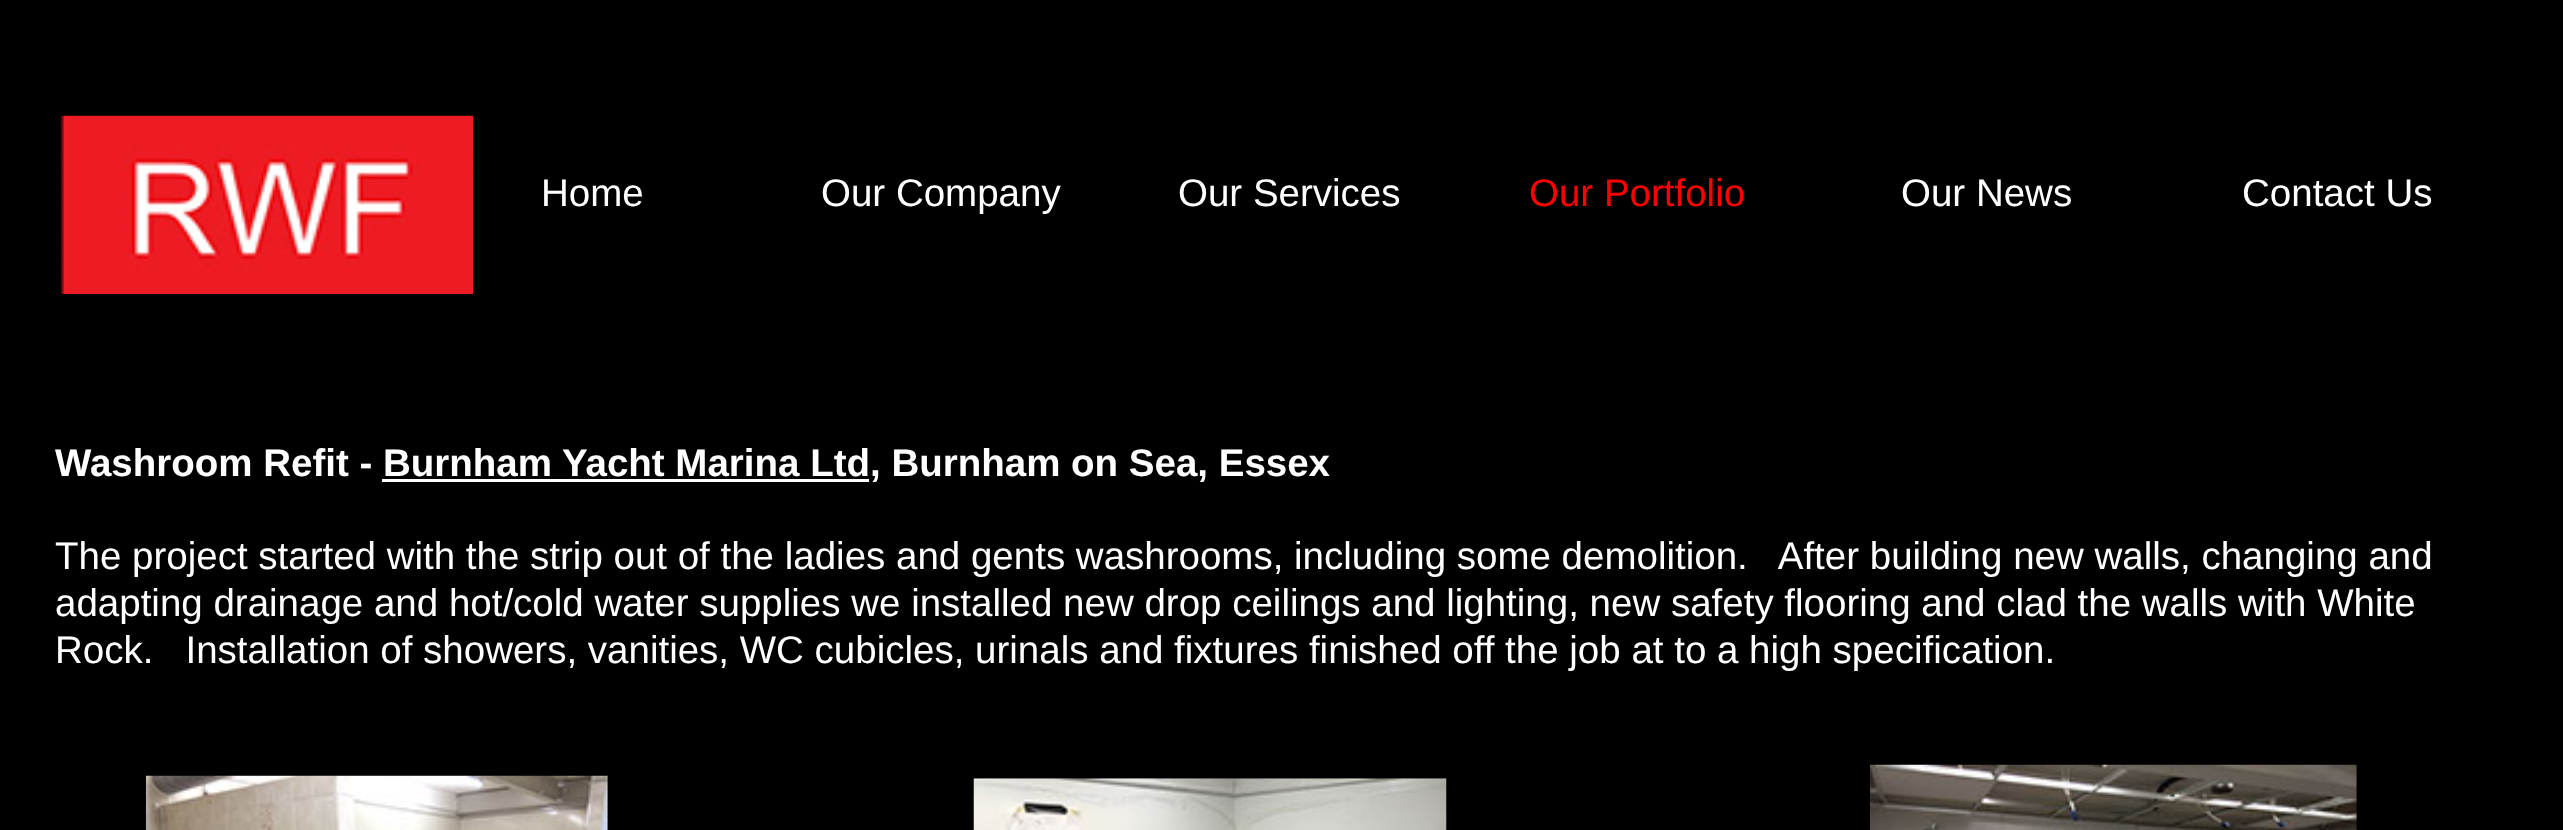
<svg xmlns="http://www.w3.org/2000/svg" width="2563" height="830">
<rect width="100%" height="100%" fill="#000"/>
<image x="60" y="115" width="413" height="180" href="media/1.png"/>
<text x="541" y="206" style="font-family:Liberation Sans;font-size:38.5px;fill:#fff">Home</text>
<text x="821" y="206" style="font-family:Liberation Sans;font-size:38.5px;fill:#fff">Our Company</text>
<text x="1178" y="206" style="font-family:Liberation Sans;font-size:38.5px;fill:#fff">Our Services</text>
<text x="1529" y="206" style="font-family:Liberation Sans;font-size:38.5px;fill:#f00">Our Portfolio</text>
<text x="1901" y="206" style="font-family:Liberation Sans;font-size:38.5px;fill:#fff">Our News</text>
<text x="2242" y="206" style="font-family:Liberation Sans;font-size:38.5px;fill:#fff">Contact Us</text>
<text x="55" y="476" style="font-family:Liberation Sans;font-size:38.5px;font-weight:bold;fill:#fff">Washroom Refit - Burnham Yacht Marina Ltd, Burnham on Sea, Essex</text>
<rect x="382" y="479" width="487" height="3" fill="#fff"/>
<text x="55" y="569" style="font-family:Liberation Sans;font-size:38.5px;fill:#fff" xml:space="preserve">The project started with the strip out of the ladies and gents washrooms, including some demolition.   After building new walls, changing and</text>
<text x="55" y="616" style="font-family:Liberation Sans;font-size:38.5px;fill:#fff">adapting drainage and hot/cold water supplies we installed new drop ceilings and lighting, new safety flooring and clad the walls with White</text>
<text x="55" y="663" style="font-family:Liberation Sans;font-size:38.5px;fill:#fff" xml:space="preserve">Rock.   Installation of showers, vanities, WC cubicles, urinals and fixtures finished off the job at to a high specification.</text>
<image x="145" y="775" width="463" height="55" href="media/2.png"/>
<image x="973" y="778" width="474" height="52" href="media/3.png"/>
<image x="1870" y="764" width="487" height="66" href="media/4.png"/>
</svg>
